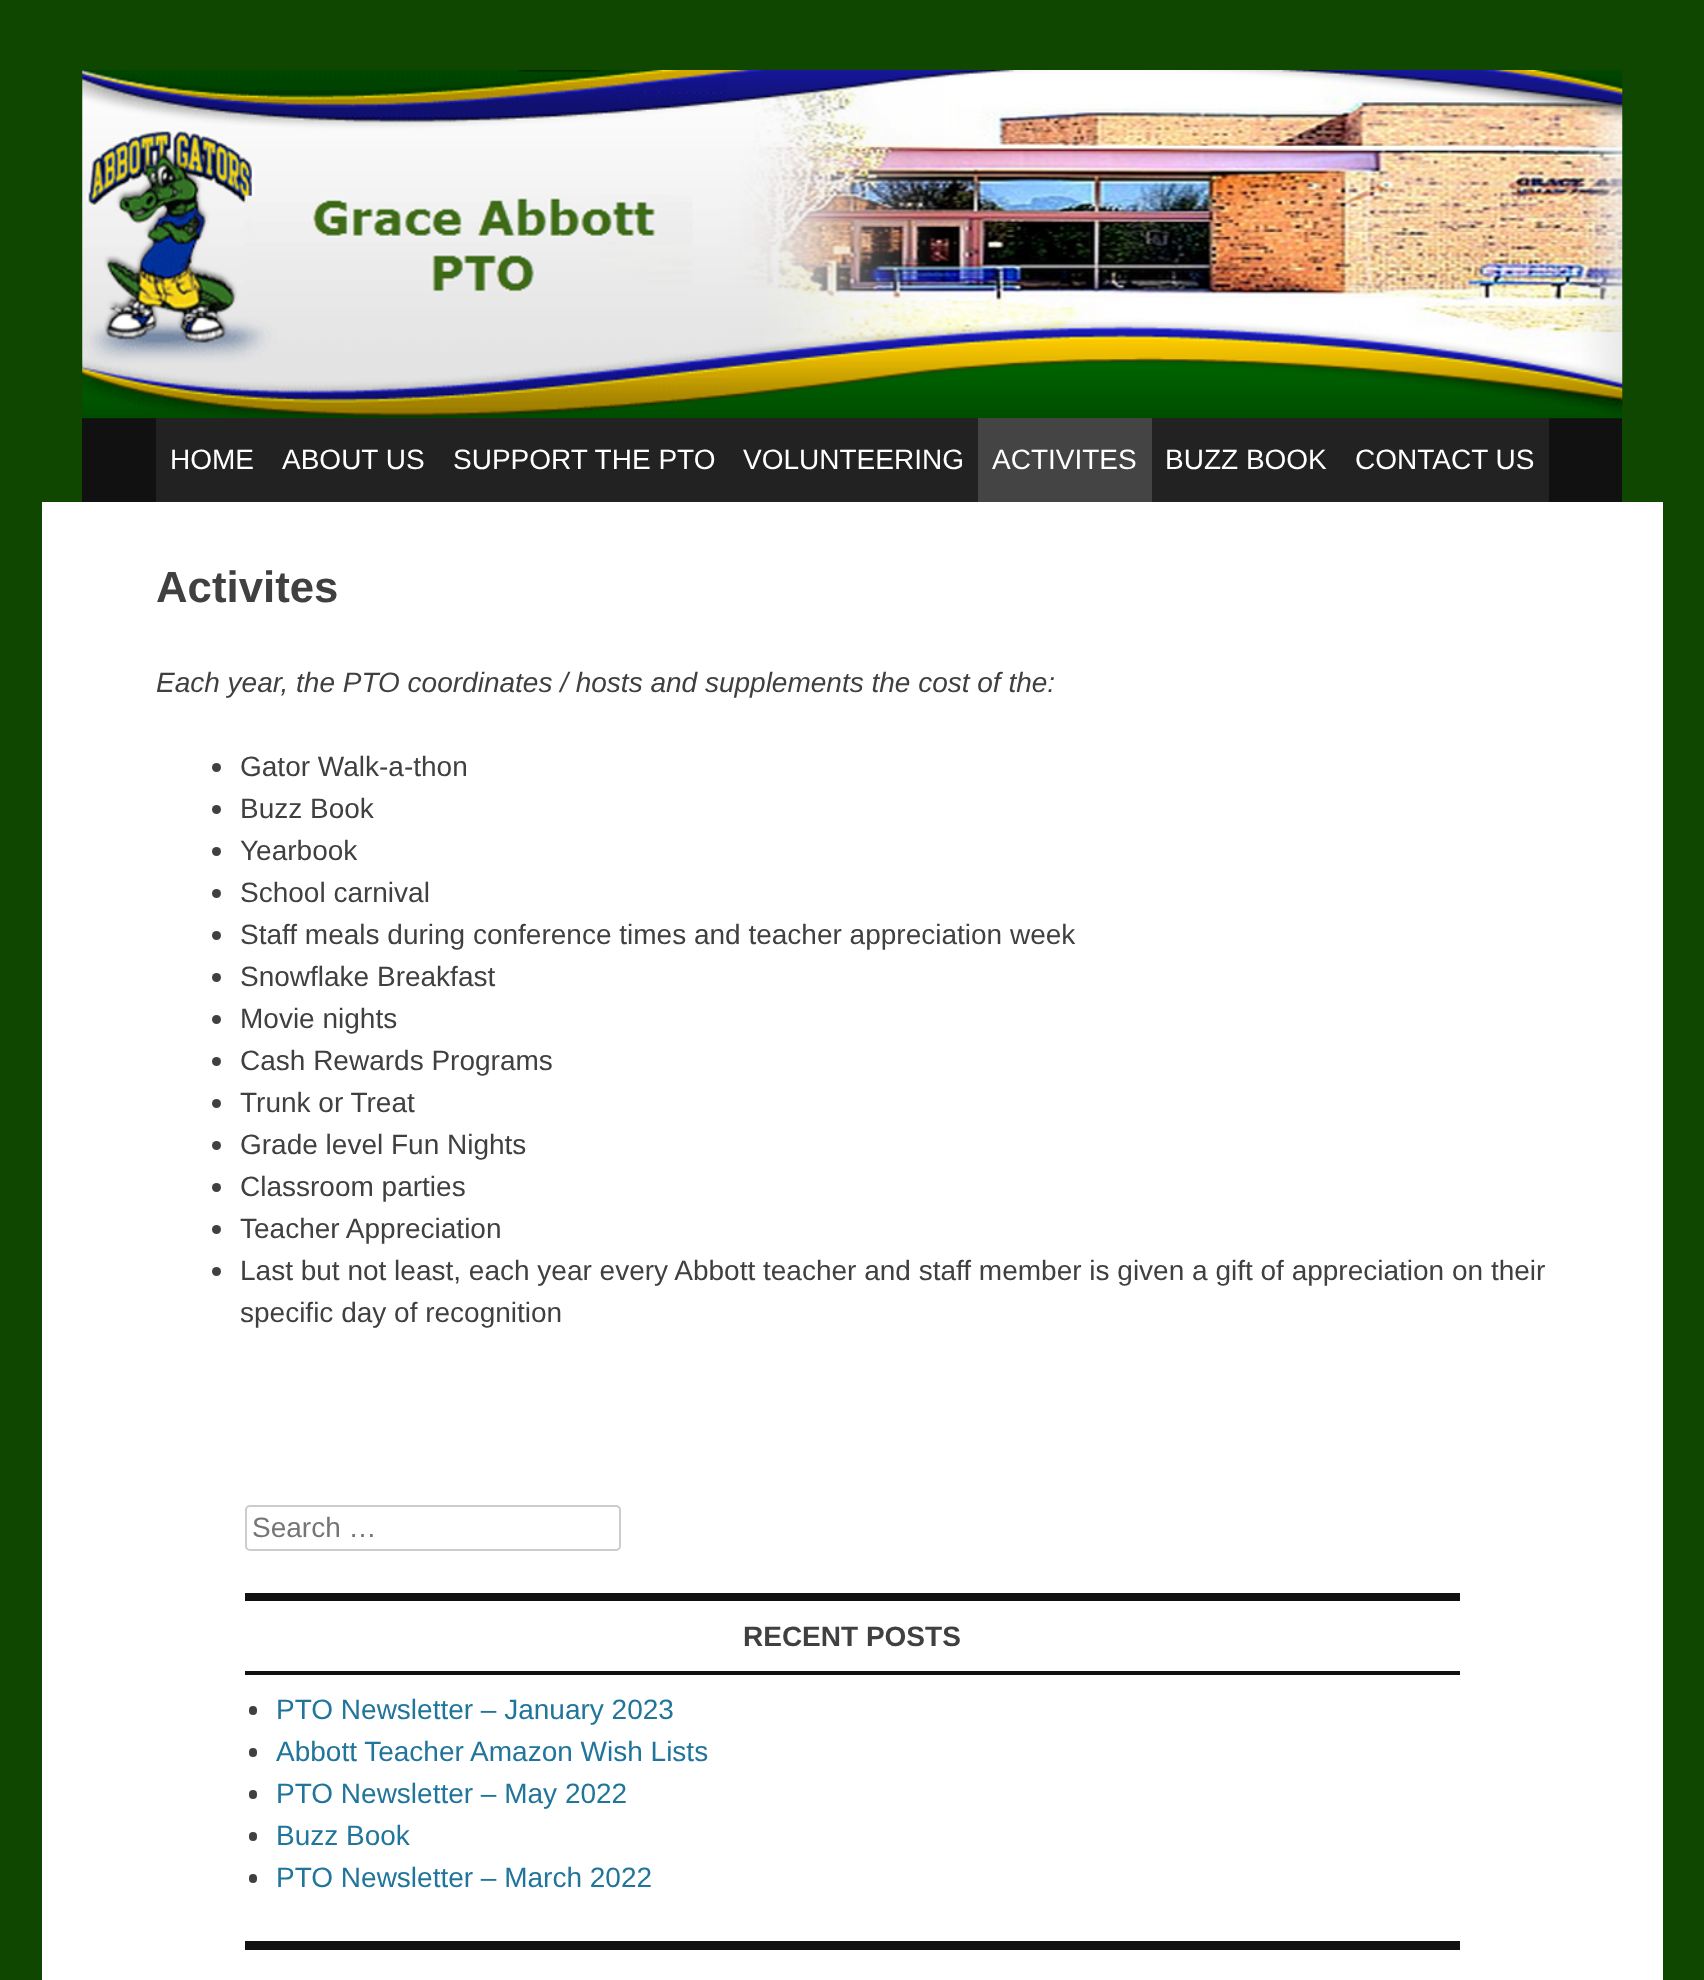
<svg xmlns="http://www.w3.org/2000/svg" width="1704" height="1980">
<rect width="100%" height="100%" fill="#104700"/>
<rect x="82" y="418" width="1540" height="84" fill="#111"/>
<image x="82" y="70" width="1541" height="349" href="media/1.png"/>
<rect x="156" y="418" width="822" height="84" fill="#222"/>
<text x="170" y="469" style="font-family:Liberation Sans;font-size:28px;fill:#fff">HOME</text>
<text x="282" y="469" style="font-family:Liberation Sans;font-size:28px;fill:#fff">ABOUT US</text>
<text x="453" y="469" style="font-family:Liberation Sans;font-size:28px;fill:#fff">SUPPORT THE PTO</text>
<text x="743" y="469" style="font-family:Liberation Sans;font-size:28px;fill:#fff">VOLUNTEERING</text>
<rect x="978" y="418" width="174" height="84" fill="#444"/>
<text x="992" y="469" style="font-family:Liberation Sans;font-size:28px;fill:#fff">ACTIVITES</text>
<rect x="1152" y="418" width="397" height="84" fill="#222"/>
<text x="1165" y="469" style="font-family:Liberation Sans;font-size:28px;fill:#fff">BUZZ BOOK</text>
<text x="1355" y="469" style="font-family:Liberation Sans;font-size:28px;fill:#fff">CONTACT US</text>
<rect x="42" y="502" width="1621" height="1478" fill="#fff"/>
<text x="156" y="602" style="font-family:Liberation Sans;font-size:43.75px;font-weight:bold;fill:#404040">Activites</text>
<text x="156" y="692" style="font-family:Liberation Sans;font-size:28px;font-style:italic;fill:#404040">Each year, the PTO coordinates / hosts and supplements the cost of the:</text>
<circle cx="216.5" cy="767.5" r="4.5" fill="#404040"/>
<text x="240" y="776" style="font-family:Liberation Sans;font-size:28px;fill:#404040">Gator Walk-a-thon</text>
<circle cx="216.5" cy="809.5" r="4.5" fill="#404040"/>
<text x="240" y="818" style="font-family:Liberation Sans;font-size:28px;fill:#404040">Buzz Book</text>
<circle cx="216.5" cy="851.5" r="4.5" fill="#404040"/>
<text x="240" y="860" style="font-family:Liberation Sans;font-size:28px;fill:#404040">Yearbook</text>
<circle cx="216.5" cy="893.5" r="4.5" fill="#404040"/>
<text x="240" y="902" style="font-family:Liberation Sans;font-size:28px;fill:#404040">School carnival</text>
<circle cx="216.5" cy="935.5" r="4.5" fill="#404040"/>
<text x="240" y="944" style="font-family:Liberation Sans;font-size:28px;fill:#404040">Staff meals during conference times and teacher appreciation week</text>
<circle cx="216.5" cy="977.5" r="4.5" fill="#404040"/>
<text x="240" y="986" style="font-family:Liberation Sans;font-size:28px;fill:#404040">Snowflake Breakfast</text>
<circle cx="216.5" cy="1019.5" r="4.5" fill="#404040"/>
<text x="240" y="1028" style="font-family:Liberation Sans;font-size:28px;fill:#404040">Movie nights</text>
<circle cx="216.5" cy="1061.5" r="4.5" fill="#404040"/>
<text x="240" y="1070" style="font-family:Liberation Sans;font-size:28px;fill:#404040">Cash Rewards Programs</text>
<circle cx="216.5" cy="1103.5" r="4.5" fill="#404040"/>
<text x="240" y="1112" style="font-family:Liberation Sans;font-size:28px;fill:#404040">Trunk or Treat</text>
<circle cx="216.5" cy="1145.5" r="4.5" fill="#404040"/>
<text x="240" y="1154" style="font-family:Liberation Sans;font-size:28px;fill:#404040">Grade level Fun Nights</text>
<circle cx="216.5" cy="1187.5" r="4.5" fill="#404040"/>
<text x="240" y="1196" style="font-family:Liberation Sans;font-size:28px;fill:#404040">Classroom parties</text>
<circle cx="216.5" cy="1229.5" r="4.5" fill="#404040"/>
<text x="240" y="1238" style="font-family:Liberation Sans;font-size:28px;fill:#404040">Teacher Appreciation</text>
<circle cx="216.5" cy="1271.5" r="4.5" fill="#404040"/>
<text x="240" y="1280" style="font-family:Liberation Sans;font-size:28px;fill:#404040">Last but not least, each year every Abbott teacher and staff member is given a gift of appreciation on their</text>
<text x="240" y="1322" style="font-family:Liberation Sans;font-size:28px;fill:#404040">specific day of recognition</text>
<rect x="246" y="1506" width="374" height="44" rx="4" fill="none" stroke="#ccc" stroke-width="2"/>
<text x="252" y="1537" style="font-family:Liberation Sans;font-size:28px;fill:#757575">Search …</text>
<rect x="245" y="1593" width="1215" height="8" fill="#111"/>
<text x="743" y="1646" style="font-family:Liberation Sans;font-size:28px;font-weight:bold;fill:#404040">RECENT POSTS</text>
<rect x="245" y="1671" width="1215" height="4" fill="#111"/>
<rect x="249" y="1706" width="8" height="9" rx="4" fill="#404040"/>
<text x="276" y="1719" style="font-family:Liberation Sans;font-size:28px;fill:#21759b">PTO Newsletter – January 2023</text>
<rect x="249" y="1748" width="8" height="9" rx="4" fill="#404040"/>
<text x="276" y="1761" style="font-family:Liberation Sans;font-size:28px;fill:#21759b">Abbott Teacher Amazon Wish Lists</text>
<rect x="249" y="1790" width="8" height="9" rx="4" fill="#404040"/>
<text x="276" y="1803" style="font-family:Liberation Sans;font-size:28px;fill:#21759b">PTO Newsletter – May 2022</text>
<rect x="249" y="1832" width="8" height="9" rx="4" fill="#404040"/>
<text x="276" y="1845" style="font-family:Liberation Sans;font-size:28px;fill:#21759b">Buzz Book</text>
<rect x="249" y="1874" width="8" height="9" rx="4" fill="#404040"/>
<text x="276" y="1887" style="font-family:Liberation Sans;font-size:28px;fill:#21759b">PTO Newsletter – March 2022</text>
<rect x="245" y="1941" width="1215" height="9" fill="#111"/>
</svg>
